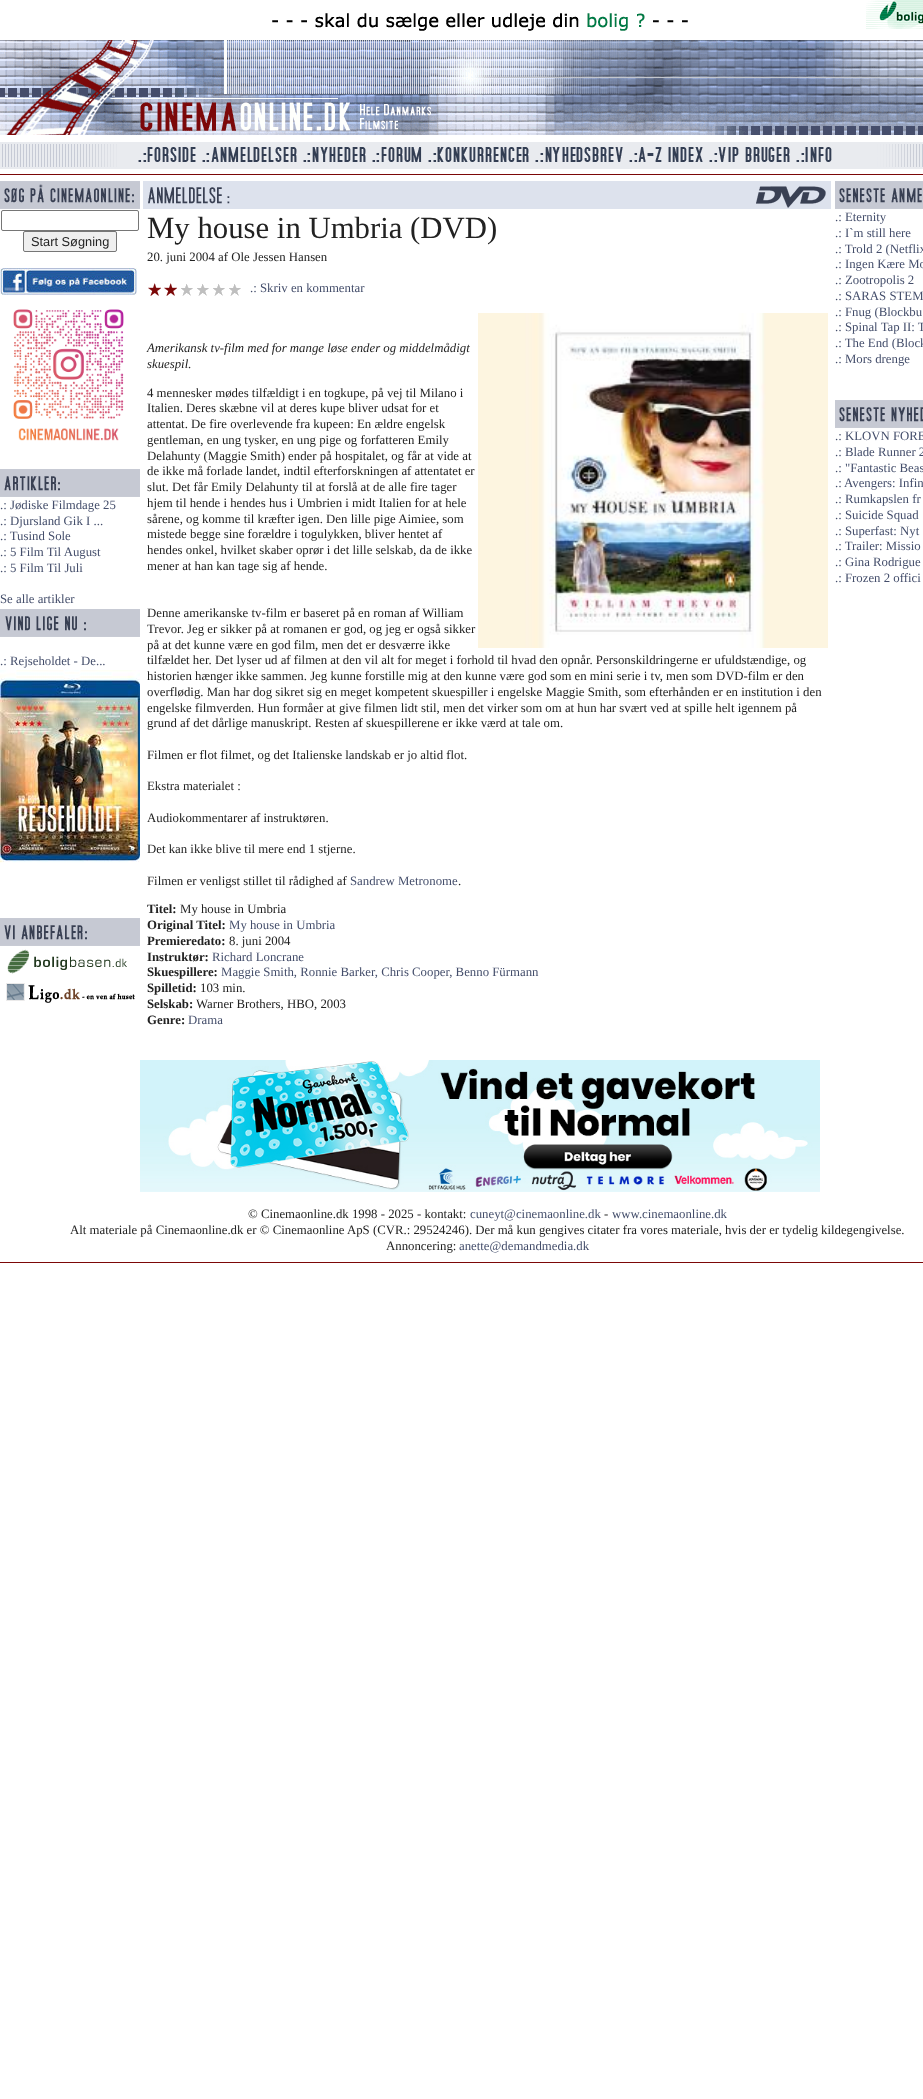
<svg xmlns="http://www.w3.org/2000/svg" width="923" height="2099">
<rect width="100%" height="100%" fill="#fff"/>
<image x="272" y="0" width="651" height="31" href="media/1.png"/>
<image x="0" y="40" width="923" height="8" href="media/2.png"/>
<image x="0" y="48" width="500" height="60" href="media/3.png"/>
<image x="500" y="48" width="423" height="60" href="media/4.png"/>
<image x="0" y="108" width="923" height="27" href="media/5.png"/>
<image x="0" y="142" width="135" height="27" href="media/6.png"/>
<image x="135" y="142" width="65" height="27" href="media/7.png"/>
<image x="200" y="142" width="101" height="27" href="media/8.png"/>
<image x="301" y="142" width="69" height="27" href="media/9.png"/>
<image x="370" y="142" width="55" height="27" href="media/10.png"/>
<image x="425" y="142" width="108" height="27" href="media/11.png"/>
<image x="533" y="142" width="93" height="27" href="media/12.png"/>
<image x="626" y="142" width="81" height="27" href="media/13.png"/>
<image x="707" y="142" width="87" height="27" href="media/14.png"/>
<image x="794" y="142" width="44" height="27" href="media/15.png"/>
<image x="838" y="142" width="85" height="27" href="media/16.png"/>
<rect y="174" width="923" height="1" fill="#7c0808"/>
<image x="0" y="181" width="140" height="28" href="media/17.png"/>
<rect x="1.5" y="210.5" width="137" height="20" rx="1.5" fill="none" stroke="#767676"/>
<rect x="23.5" y="231.5" width="93" height="20" rx="1.5" fill="#efefef" stroke="#767676"/>
<text x="31" y="246" style="font-family:Liberation Sans;font-size:12.8px;fill:#222">Start Søgning</text>
<image x="0" y="268" width="137" height="27" href="media/18.png"/>
<image x="13" y="309" width="111" height="132" href="media/19.png"/>
<image x="0" y="469" width="140" height="28" href="media/20.png"/>
<text x="0" y="509" style="font-family:Liberation Serif;font-size:12.8px;fill:#444e6b">.: Jødiske Filmdage 25</text>
<text x="0" y="525" style="font-family:Liberation Serif;font-size:12.8px;fill:#444e6b">.: Djursland Gik I ...</text>
<text x="0" y="540" style="font-family:Liberation Serif;font-size:12.8px;fill:#444e6b">.: Tusind Sole</text>
<text x="0" y="556" style="font-family:Liberation Serif;font-size:12.8px;fill:#444e6b">.: 5 Film Til August</text>
<text x="0" y="572" style="font-family:Liberation Serif;font-size:12.8px;fill:#444e6b">.: 5 Film Til Juli</text>
<text x="0" y="603" style="font-family:Liberation Serif;font-size:12.8px;fill:#444e6b">Se alle artikler</text>
<image x="0" y="609" width="140" height="28" href="media/21.png"/>
<text x="0" y="665" style="font-family:Liberation Serif;font-size:12.8px;fill:#444e6b">.: Rejseholdet - De...</text>
<image x="0" y="670" width="140" height="193" href="media/22.png"/>
<image x="0" y="918" width="140" height="28" href="media/23.png"/>
<image x="7" y="949" width="120" height="25" href="media/24.png"/>
<image x="6" y="983" width="129" height="20" href="media/25.png"/>
<image x="143" y="181" width="688" height="28" href="media/26.png"/>
<text x="147" y="238" style="font-family:Liberation Serif;font-size:30.75px;fill:#222">My house in Umbria (DVD)</text>
<text x="147" y="261" style="font-family:Liberation Serif;font-size:12.8px;fill:#222">20. juni 2004 af Ole Jessen Hansen</text>
<image x="148" y="283" width="93" height="13" href="media/27.png"/>
<text x="250" y="292" style="font-family:Liberation Serif;font-size:12.8px;fill:#444e6b">.: Skriv en kommentar</text>
<text x="147" y="352" style="font-family:Liberation Serif;font-size:12.8px;font-style:italic;fill:#222">Amerikansk tv-film med for mange løse ender og middelmådigt</text>
<text x="147" y="368" style="font-family:Liberation Serif;font-size:12.8px;font-style:italic;fill:#222">skuespil.</text>
<image x="478" y="313" width="350" height="335" href="media/28.png"/>
<text x="147" y="397" style="font-family:Liberation Serif;font-size:12.8px;fill:#222">4 mennesker mødes tilfældigt i en togkupe, på vej til Milano i</text>
<text x="147" y="412" style="font-family:Liberation Serif;font-size:12.8px;fill:#222">Italien. Deres skæbne vil at deres kupe bliver udsat for et</text>
<text x="147" y="428" style="font-family:Liberation Serif;font-size:12.8px;fill:#222">attentat. De fire overlevende fra kupeen: En ældre engelsk</text>
<text x="147" y="444" style="font-family:Liberation Serif;font-size:12.8px;fill:#222">gentleman, en ung tysker, en ung pige og forfatteren Emily</text>
<text x="147" y="460" style="font-family:Liberation Serif;font-size:12.8px;fill:#222">Delahunty (Maggie Smith) ender på hospitalet, og får at vide at</text>
<text x="147" y="475" style="font-family:Liberation Serif;font-size:12.8px;fill:#222">de ikke må forlade landet, indtil efterforskningen af attentatet er</text>
<text x="147" y="491" style="font-family:Liberation Serif;font-size:12.8px;fill:#222">slut. Det får Emily Delahunty til at forslå at de alle fire tager</text>
<text x="147" y="507" style="font-family:Liberation Serif;font-size:12.8px;fill:#222">hjem til hende i hendes hus i Umbrien i midt Italien for at hele</text>
<text x="147" y="523" style="font-family:Liberation Serif;font-size:12.8px;fill:#222">sårene, og komme til kræfter igen. Den lille pige Aimiee, som</text>
<text x="147" y="538" style="font-family:Liberation Serif;font-size:12.8px;fill:#222">mistede begge sine forældre i togulykken, bliver hentet af</text>
<text x="147" y="554" style="font-family:Liberation Serif;font-size:12.8px;fill:#222">hendes onkel, hvilket skaber oprør i det lille selskab, da de ikke</text>
<text x="147" y="570" style="font-family:Liberation Serif;font-size:12.8px;fill:#222">mener at han kan tage sig af hende.</text>
<text x="147" y="617" style="font-family:Liberation Serif;font-size:12.8px;fill:#222">Denne amerikanske tv-film er baseret på en roman af William</text>
<text x="147" y="633" style="font-family:Liberation Serif;font-size:12.8px;fill:#222">Trevor. Jeg er sikker på at romanen er god, og jeg er også sikker</text>
<text x="147" y="649" style="font-family:Liberation Serif;font-size:12.8px;fill:#222">på at det kunne være en god film, men det er desværre ikke</text>
<text x="147" y="664" style="font-family:Liberation Serif;font-size:12.8px;fill:#222">tilfældet her. Det lyser ud af filmen at den vil alt for meget i forhold til hvad den opnår. Personskildringerne er ufuldstændige, og</text>
<text x="147" y="680" style="font-family:Liberation Serif;font-size:12.8px;fill:#222">historien hænger ikke sammen. Jeg kunne forstille mig at den kunne være god som en mini serie i tv, men som DVD-film er den</text>
<text x="147" y="696" style="font-family:Liberation Serif;font-size:12.8px;fill:#222">overflødig. Man har dog sikret sig en meget kompetent skuespiller i engelske Maggie Smith, som efterhånden er en institution i den</text>
<text x="147" y="712" style="font-family:Liberation Serif;font-size:12.8px;fill:#222">engelske filmverden. Hun formåer at give filmen lidt stil, men det virker som om at hun har svært ved at spille helt igennem på</text>
<text x="147" y="727" style="font-family:Liberation Serif;font-size:12.8px;fill:#222">grund af det dårlige manuskript. Resten af skuespillerene er ikke værd at tale om.</text>
<text x="147" y="759" style="font-family:Liberation Serif;font-size:12.8px;fill:#222">Filmen er flot filmet, og det Italienske landskab er jo altid flot.</text>
<text x="147" y="790" style="font-family:Liberation Serif;font-size:12.8px;fill:#222">Ekstra materialet :</text>
<text x="147" y="822" style="font-family:Liberation Serif;font-size:12.8px;fill:#222">Audiokommentarer af instruktøren.</text>
<text x="147" y="853" style="font-family:Liberation Serif;font-size:12.8px;fill:#222">Det kan ikke blive til mere end 1 stjerne.</text>
<text x="147" y="885" style="font-family:Liberation Serif;font-size:12.8px;fill:#222">Filmen er venligst stillet til rådighed af</text>
<text x="350" y="885" style="font-family:Liberation Serif;font-size:12.8px;fill:#444e6b">Sandrew Metronome</text>
<text x="458" y="885" style="font-family:Liberation Serif;font-size:12.8px;fill:#222">.</text>
<text x="147" y="913" style="font-family:Liberation Serif;font-size:12.8px;font-weight:bold;fill:#222">Titel:</text>
<text x="180" y="913" style="font-family:Liberation Serif;font-size:12.8px;fill:#222">My house in Umbria</text>
<text x="147" y="929" style="font-family:Liberation Serif;font-size:12.8px;font-weight:bold;fill:#222">Original Titel:</text>
<text x="229" y="929" style="font-family:Liberation Serif;font-size:12.8px;fill:#444e6b">My house in Umbria</text>
<text x="147" y="945" style="font-family:Liberation Serif;font-size:12.8px;font-weight:bold;fill:#222">Premieredato:</text>
<text x="229" y="945" style="font-family:Liberation Serif;font-size:12.8px;fill:#222">8. juni 2004</text>
<text x="147" y="961" style="font-family:Liberation Serif;font-size:12.8px;font-weight:bold;fill:#222">Instruktør:</text>
<text x="212" y="961" style="font-family:Liberation Serif;font-size:12.8px;fill:#444e6b">Richard Loncrane</text>
<text x="147" y="976" style="font-family:Liberation Serif;font-size:12.8px;font-weight:bold;fill:#222">Skuespillere:</text>
<text x="221" y="976" style="font-family:Liberation Serif;font-size:12.8px;fill:#444e6b">Maggie Smith, Ronnie Barker, Chris Cooper, Benno Fürmann</text>
<text x="147" y="992" style="font-family:Liberation Serif;font-size:12.8px;font-weight:bold;fill:#222">Spilletid:</text>
<text x="200" y="992" style="font-family:Liberation Serif;font-size:12.8px;fill:#222">103 min.</text>
<text x="147" y="1008" style="font-family:Liberation Serif;font-size:12.8px;font-weight:bold;fill:#222">Selskab:</text>
<text x="196" y="1008" style="font-family:Liberation Serif;font-size:12.8px;fill:#222">Warner Brothers, HBO, 2003</text>
<text x="147" y="1024" style="font-family:Liberation Serif;font-size:12.8px;font-weight:bold;fill:#222">Genre:</text>
<text x="188" y="1024" style="font-family:Liberation Serif;font-size:12.8px;fill:#444e6b">Drama</text>
<image x="140" y="1060" width="680" height="132" href="media/29.png"/>
<image x="835" y="181" width="88" height="28" href="media/30.png"/>
<text x="835" y="221" style="font-family:Liberation Serif;font-size:12.8px;fill:#444e6b">.: Eternity</text>
<text x="835" y="237" style="font-family:Liberation Serif;font-size:12.8px;fill:#444e6b">.: I`m still here</text>
<text x="835" y="253" style="font-family:Liberation Serif;font-size:12.8px;fill:#444e6b">.: Trold 2 (Netflix</text>
<text x="835" y="268" style="font-family:Liberation Serif;font-size:12.8px;fill:#444e6b">.: Ingen Kære Mo</text>
<text x="835" y="284" style="font-family:Liberation Serif;font-size:12.8px;fill:#444e6b">.: Zootropolis 2</text>
<text x="835" y="300" style="font-family:Liberation Serif;font-size:12.8px;fill:#444e6b">.: SARAS STEM</text>
<text x="835" y="316" style="font-family:Liberation Serif;font-size:12.8px;fill:#444e6b">.: Fnug (Blockbu</text>
<text x="835" y="331" style="font-family:Liberation Serif;font-size:12.8px;fill:#444e6b">.: Spinal Tap II: T</text>
<text x="835" y="347" style="font-family:Liberation Serif;font-size:12.8px;fill:#444e6b">.: The End (Block</text>
<text x="835" y="363" style="font-family:Liberation Serif;font-size:12.8px;fill:#444e6b">.: Mors drenge</text>
<image x="835" y="400" width="88" height="28" href="media/31.png"/>
<text x="835" y="440" style="font-family:Liberation Serif;font-size:12.8px;fill:#444e6b">.: KLOVN FORE</text>
<text x="835" y="456" style="font-family:Liberation Serif;font-size:12.8px;fill:#444e6b">.: Blade Runner 2</text>
<text x="835" y="472" style="font-family:Liberation Serif;font-size:12.8px;fill:#444e6b">.: "Fantastic Beas</text>
<text x="835" y="487" style="font-family:Liberation Serif;font-size:12.8px;fill:#444e6b">.:</text>
<text x="844" y="487" style="font-family:Liberation Serif;font-size:12.8px;fill:#444e6b">Avengers: Infin</text>
<text x="835" y="503" style="font-family:Liberation Serif;font-size:12.8px;fill:#444e6b">.: Rumkapslen fr</text>
<text x="835" y="519" style="font-family:Liberation Serif;font-size:12.8px;fill:#444e6b">.: Suicide Squad</text>
<text x="835" y="535" style="font-family:Liberation Serif;font-size:12.8px;fill:#444e6b">.: Superfast: Nyt</text>
<text x="835" y="550" style="font-family:Liberation Serif;font-size:12.8px;fill:#444e6b">.: Trailer: Missio</text>
<text x="835" y="566" style="font-family:Liberation Serif;font-size:12.8px;fill:#444e6b">.: Gina Rodrigue</text>
<text x="835" y="582" style="font-family:Liberation Serif;font-size:12.8px;fill:#444e6b">.: Frozen 2 offici</text>
<text x="248" y="1218" style="font-family:Liberation Serif;font-size:12.8px;fill:#222">© Cinemaonline.dk 1998 - 2025 - kontakt:</text>
<text x="470" y="1218" style="font-family:Liberation Serif;font-size:12.8px;fill:#444e6b">cuneyt@cinemaonline.dk</text>
<text x="604" y="1218" style="font-family:Liberation Serif;font-size:12.8px;fill:#222">-</text>
<text x="612" y="1218" style="font-family:Liberation Serif;font-size:12.8px;fill:#444e6b">www.cinemaonline.dk</text>
<text x="70" y="1234" style="font-family:Liberation Serif;font-size:12.8px;fill:#222">Alt materiale på Cinemaonline.dk er © Cinemaonline ApS (CVR.: 29524246). Der må kun gengives citater fra vores materiale, hvis der er tydelig kildegengivelse.</text>
<text x="386" y="1250" style="font-family:Liberation Serif;font-size:12.8px;fill:#222">Annoncering:</text>
<text x="459" y="1250" style="font-family:Liberation Serif;font-size:12.8px;fill:#444e6b">anette@demandmedia.dk</text>
<rect y="1262" width="923" height="1" fill="#7c0808"/>
</svg>
